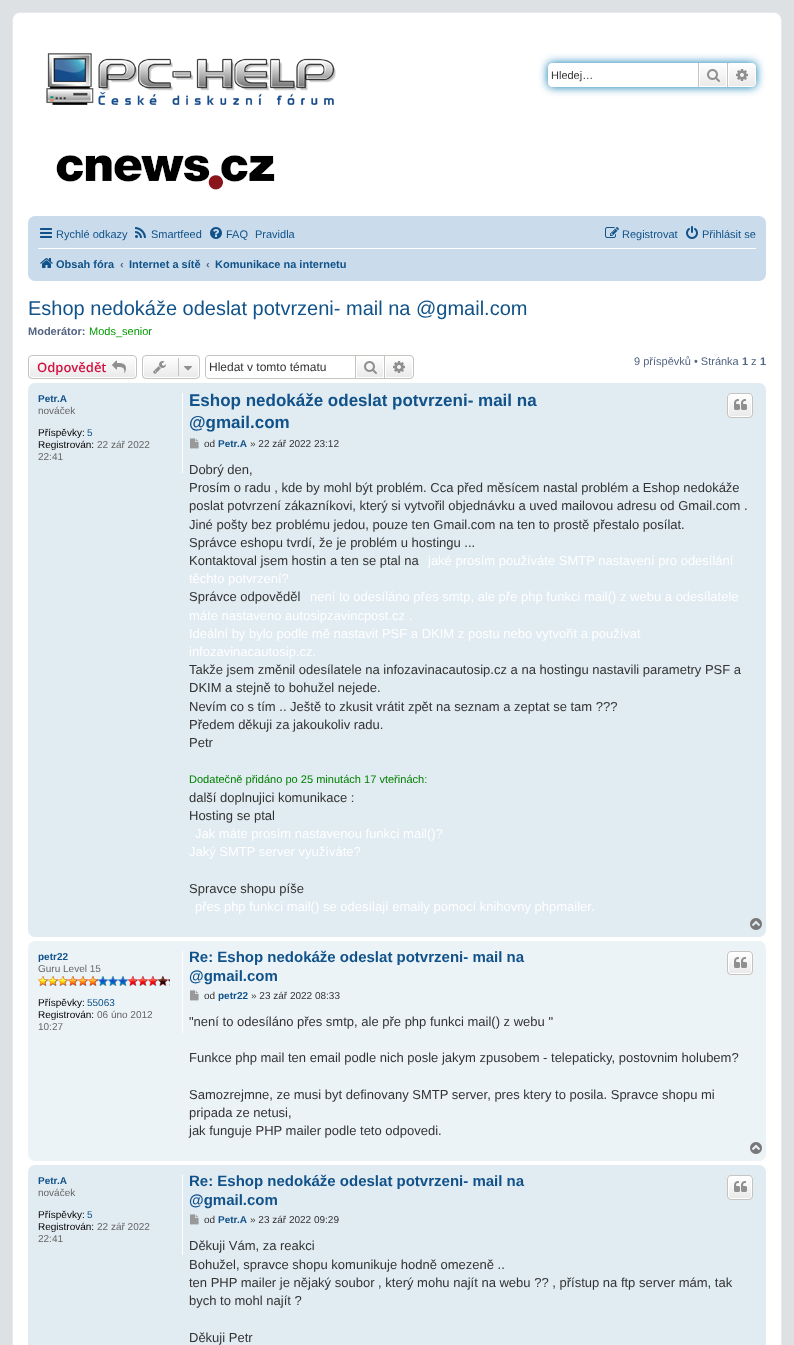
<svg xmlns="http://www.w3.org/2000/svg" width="794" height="1345">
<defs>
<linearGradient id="g1" gradientUnits="userSpaceOnUse" x1="713" y1="63" x2="713" y2="87"><stop offset="0" stop-color="#fff"/><stop offset="1" stop-color="#e9e9e9"/></linearGradient>
<linearGradient id="g2" gradientUnits="userSpaceOnUse" x1="742" y1="63" x2="742" y2="87"><stop offset="0" stop-color="#fff"/><stop offset="1" stop-color="#e9e9e9"/></linearGradient>
<clipPath id="clip1"><rect x="28" y="355" width="109" height="24" rx="4"/></clipPath>
<linearGradient id="g3" gradientUnits="userSpaceOnUse" x1="83" y1="356" x2="83" y2="378"><stop offset="0" stop-color="#fff"/><stop offset="1" stop-color="#e9e9e9"/></linearGradient>
<clipPath id="clip2"><rect x="142" y="355" width="58" height="24" rx="4"/></clipPath>
<linearGradient id="g4" gradientUnits="userSpaceOnUse" x1="171" y1="356" x2="171" y2="378"><stop offset="0" stop-color="#fff"/><stop offset="1" stop-color="#e9e9e9"/></linearGradient>
<linearGradient id="g5" gradientUnits="userSpaceOnUse" x1="370" y1="356" x2="370" y2="378"><stop offset="0" stop-color="#fff"/><stop offset="1" stop-color="#e9e9e9"/></linearGradient>
<linearGradient id="g6" gradientUnits="userSpaceOnUse" x1="399" y1="356" x2="399" y2="378"><stop offset="0" stop-color="#fff"/><stop offset="1" stop-color="#e9e9e9"/></linearGradient>
<clipPath id="clip3"><rect x="727" y="393" width="26" height="25" rx="4"/></clipPath>
<linearGradient id="g7" gradientUnits="userSpaceOnUse" x1="740" y1="394" x2="740" y2="417"><stop offset="0" stop-color="#fff"/><stop offset="1" stop-color="#e9e9e9"/></linearGradient>
<clipPath id="clip4"><rect x="727" y="951" width="26" height="24" rx="4"/></clipPath>
<linearGradient id="g8" gradientUnits="userSpaceOnUse" x1="740" y1="952" x2="740" y2="974"><stop offset="0" stop-color="#fff"/><stop offset="1" stop-color="#e9e9e9"/></linearGradient>
<clipPath id="clip5"><rect x="727" y="1175" width="26" height="25" rx="4"/></clipPath>
<linearGradient id="g9" gradientUnits="userSpaceOnUse" x1="740" y1="1176" x2="740" y2="1199"><stop offset="0" stop-color="#fff"/><stop offset="1" stop-color="#e9e9e9"/></linearGradient>
</defs>
<rect width="100%" height="100%" fill="#dee1e4"/>
<rect x="12.5" y="12.5" width="769" height="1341" rx="7.5" fill="#fff" stroke="#e6e9ed"/>
<image x="46" y="53" width="290" height="52" href="media/1.png"/>
<image x="56" y="155" width="219" height="35" href="media/2.png"/>
<rect x="548" y="63" width="208" height="24" rx="4" fill="#0075b0" filter="blur(5px)"/>
<path d="M552 63h146v24h-146c-2 0-4-2-4-4v-16c0-2 2-4 4-4z" fill="#fff"/>
<text x="551" y="79" style="font-family:Liberation Sans;font-size:11px;fill:#333">Hledej…</text>
<rect x="700" y="64" width="26" height="22" fill="url(#g1)"/>
<rect x="699.5" y="63.5" width="27" height="23" fill="none" stroke="#fff"/>
<rect x="727" y="63" width="1" height="24" fill="#c7c3bf"/>
<rect x="698" y="63" width="1" height="24" fill="#c7c3bf"/>
<image x="707" y="69" width="13" height="13" href="media/3.png"/>
<path d="M728.5 63.5h23.5c2 0 3.5 1.5 3.5 3.5v16c0 2-1.5 3.5-3.5 3.5h-23.5z" fill="url(#g2)" stroke="#fff"/>
<image x="736" y="69" width="12" height="12" href="media/4.png"/>
<rect x="28" y="216" width="738" height="65" rx="7" fill="#cadceb"/>
<image x="40" y="228" width="12" height="10" href="media/5.png"/>
<text x="56" y="238" style="font-family:Liberation Sans;font-size:11px;fill:#105289">Rychlé odkazy</text>
<image x="135" y="227" width="11" height="11" href="media/6.png"/>
<text x="151" y="238" style="font-family:Liberation Sans;font-size:11px;fill:#105289">Smartfeed</text>
<image x="210" y="227" width="12" height="12" href="media/7.png"/>
<text x="226" y="238" style="font-family:Liberation Sans;font-size:11px;fill:#105289">FAQ</text>
<text x="255" y="238" style="font-family:Liberation Sans;font-size:11px;fill:#105289">Pravidla</text>
<image x="605" y="227" width="14" height="11" href="media/8.png"/>
<text x="622" y="238" style="font-family:Liberation Sans;font-size:11px;fill:#105289">Registrovat</text>
<image x="686" y="226" width="12" height="13" href="media/9.png"/>
<text x="702" y="238" style="font-family:Liberation Sans;font-size:11px;fill:#105289">Přihlásit se</text>
<rect x="38" y="248" width="718" height="1" fill="#fff"/>
<image x="40" y="258" width="13" height="10" href="media/10.png"/>
<text x="56" y="268" style="font-family:Liberation Sans;font-size:11px;font-weight:bold;fill:#105289">Obsah fóra</text>
<text x="120" y="268" style="font-family:Liberation Sans;font-size:11px;font-weight:bold;fill:#536482">‹</text>
<text x="129" y="268" style="font-family:Liberation Sans;font-size:11px;font-weight:bold;fill:#105289">Internet a sítě</text>
<text x="206" y="268" style="font-family:Liberation Sans;font-size:11px;font-weight:bold;fill:#536482">‹</text>
<text x="215" y="268" style="font-family:Liberation Sans;font-size:11px;font-weight:bold;fill:#105289">Komunikace na internetu</text>
<text x="28" y="315" style="font-family:Liberation Sans;font-size:20px;fill:#105289">Eshop nedokáže odeslat potvrzeni- mail na @gmail.com</text>
<text x="28" y="335" style="font-family:Liberation Sans;font-size:11px;font-weight:bold;fill:#536482">Moderátor:</text>
<text x="89" y="335" style="font-family:Liberation Sans;font-size:11px;fill:#090">Mods_senior</text>
<g clip-path="url(#clip1)">
<rect x="28" y="356" width="109" height="22" fill="url(#g3)"/>
</g>
<rect x="29.5" y="356.5" width="106" height="21" rx="2.5" fill="none" stroke="#fff"/>
<rect x="28.5" y="355.5" width="108" height="23" rx="3.5" fill="none" stroke="#c7c3bf"/>
<text x="37" y="372" style="font-family:Open Sans;font-size:13px;font-weight:600;fill:#d31141">Odpovědět</text>
<image x="112" y="360" width="14" height="13" href="media/11.png"/>
<g clip-path="url(#clip2)">
<rect x="142" y="356" width="58" height="22" fill="url(#g4)"/>
</g>
<rect x="143.5" y="356.5" width="55" height="21" rx="2.5" fill="none" stroke="#fff"/>
<rect x="142.5" y="355.5" width="57" height="23" rx="3.5" fill="none" stroke="#c7c3bf"/>
<image x="153" y="361" width="13" height="13" href="media/12.png"/>
<rect x="178" y="358" width="1" height="18" fill="#c7c3bf"/>
<image x="184" y="366" width="8" height="5" href="media/13.png"/>
<path d="M209 355h146v24h-146c-2 0-4-2-4-4v-16c0-2 2-4 4-4zm0 1h146v22h-146c-2 0-3-1-3-3v-16c0-2 1-3 3-3z" fill="#c7c3bf" fill-rule="evenodd"/>
<text x="209" y="371" style="font-family:Liberation Sans;font-size:12px;fill:#333">Hledat v tomto tématu</text>
<rect x="357" y="359" width="26" height="18" fill="url(#g5)"/>
<rect x="355.5" y="355.5" width="29" height="23" fill="none" stroke="#c7c3bf"/>
<image x="364" y="361" width="13" height="13" href="media/14.png"/>
<path d="M385.5 356.5h24.5c1.5 0 2.5 1 2.5 2.5v16c0 1.5-1 2.5-2.5 2.5h-24.5z" fill="url(#g6)" stroke="#fff"/>
<path d="M385 355h25c2 0 4 2 4 4v16c0 2-2 4-4 4h-25zm0 1h25c1.5 0 3 1.5 3 3v16c0 1.5-1.5 3-3 3h-25z" fill="#c7c3bf" fill-rule="evenodd"/>
<image x="393" y="361" width="12" height="12" href="media/15.png"/>
<text x="634" y="365" style="font-family:Liberation Sans;font-size:11px;fill:#536482">9 příspěvků • Stránka</text>
<text x="742" y="365" style="font-family:Liberation Sans;font-size:11px;font-weight:bold;fill:#536482">1</text>
<text x="751" y="365" style="font-family:Liberation Sans;font-size:11px;fill:#536482">z</text>
<text x="760" y="365" style="font-family:Liberation Sans;font-size:11px;font-weight:bold;fill:#536482">1</text>
<rect x="28" y="383" width="738" height="554" rx="7" fill="#e1ebf2"/>
<rect x="182" y="393" width="1" height="80" fill="#fff"/>
<text x="38" y="402" style="font-family:Liberation Sans;font-size:10px;font-weight:bold;fill:#105289">Petr.A</text>
<text x="38" y="414" style="font-family:Liberation Sans;font-size:10px;fill:#666">nováček</text>
<text x="38" y="436" style="font-family:Liberation Sans;font-size:10px;fill:#000">Příspěvky:</text>
<text x="87" y="436" style="font-family:Liberation Sans;font-size:10px;fill:#105289">5</text>
<text x="38" y="448" style="font-family:Liberation Sans;font-size:10px;fill:#000">Registrován:</text>
<text x="97" y="448" style="font-family:Liberation Sans;font-size:10px;fill:#666">22 zář 2022</text>
<text x="38" y="460" style="font-family:Liberation Sans;font-size:10px;fill:#666">22:41</text>
<text x="189" y="406" style="font-family:Liberation Sans;font-size:17px;font-weight:bold;fill:#105289">Eshop nedokáže odeslat potvrzeni- mail na</text>
<text x="189" y="428" style="font-family:Liberation Sans;font-size:17px;font-weight:bold;fill:#105289">@gmail.com</text>
<g clip-path="url(#clip3)">
<rect x="727" y="394" width="26" height="23" fill="url(#g7)"/>
</g>
<rect x="728.5" y="394.5" width="23" height="22" rx="2.5" fill="none" stroke="#fff"/>
<rect x="727.5" y="393.5" width="25" height="24" rx="3.5" fill="none" stroke="#c7c3bf"/>
<image x="734" y="399" width="13" height="11" href="media/16.png"/>
<image x="190" y="438" width="9" height="11" href="media/17.png"/>
<text x="204" y="447" style="font-family:Liberation Sans;font-size:10px;fill:#333">od</text>
<text x="218" y="447" style="font-family:Liberation Sans;font-size:10px;font-weight:bold;fill:#105289">Petr.A</text>
<text x="250" y="447" style="font-family:Liberation Sans;font-size:10px;fill:#333">» 22 zář 2022 23:12</text>
<text x="189" y="474" style="font-family:Liberation Sans;font-size:13px;fill:#333">Dobrý den,</text>
<text x="189" y="492" style="font-family:Liberation Sans;font-size:13px;fill:#333">Prosím o radu , kde by mohl být problém. Cca před měsícem nastal problém a Eshop nedokáže</text>
<text x="189" y="510" style="font-family:Liberation Sans;font-size:13px;fill:#333">poslat potvrzení zákazníkovi, který si vytvořil objednávku a uved mailovou adresu od Gmail.com .</text>
<text x="189" y="529" style="font-family:Liberation Sans;font-size:13px;fill:#333">Jiné pošty bez problému jedou, pouze ten Gmail.com na ten to prostě přestalo posílat.</text>
<text x="189" y="547" style="font-family:Liberation Sans;font-size:13px;fill:#333">Správce eshopu tvrdí, že je problém u hostingu ...</text>
<text x="189" y="565" style="font-family:Liberation Sans;font-size:13px;fill:#333">Kontaktoval jsem hostin a ten se ptal na</text>
<text x="428" y="565" style="font-family:Liberation Sans;font-size:13px;fill:#fff">jaké prosím používáte SMTP nastavení pro odesílání</text>
<text x="189" y="583" style="font-family:Liberation Sans;font-size:13px;fill:#fff">těchto potvrzení?</text>
<text x="189" y="601" style="font-family:Liberation Sans;font-size:13px;fill:#333">Správce odpověděl</text>
<text x="310" y="601" style="font-family:Liberation Sans;font-size:13px;fill:#fff">není to odesíláno přes smtp, ale pře php funkci mail() z webu a odesílatele</text>
<text x="189" y="620" style="font-family:Liberation Sans;font-size:13px;fill:#fff">máte nastaveno autosipzavincpost.cz .</text>
<text x="189" y="638" style="font-family:Liberation Sans;font-size:13px;fill:#fff">Ideální by bylo podle mě nastavit PSF a DKIM z postu nebo vytvořit a používat</text>
<text x="189" y="656" style="font-family:Liberation Sans;font-size:13px;fill:#fff">infozavinacautosip.cz.</text>
<text x="189" y="674" style="font-family:Liberation Sans;font-size:13px;fill:#333">Takže jsem změnil odesílatele na infozavinacautosip.cz a na hostingu nastavili parametry PSF a</text>
<text x="189" y="692" style="font-family:Liberation Sans;font-size:13px;fill:#333">DKIM a stejně to bohužel nejede.</text>
<text x="189" y="711" style="font-family:Liberation Sans;font-size:13px;fill:#333">Nevím co s tím .. Ještě to zkusit vrátit zpět na seznam a zeptat se tam ???</text>
<text x="189" y="729" style="font-family:Liberation Sans;font-size:13px;fill:#333">Předem děkuji za jakoukoliv radu.</text>
<text x="189" y="747" style="font-family:Liberation Sans;font-size:13px;fill:#333">Petr</text>
<text x="189" y="783" style="font-family:Liberation Sans;font-size:11.05px;fill:#008000">Dodatečně přidáno po 25 minutách 17 vteřinách:</text>
<text x="189" y="802" style="font-family:Liberation Sans;font-size:13px;fill:#333">další doplnujici komunikace :</text>
<text x="189" y="820" style="font-family:Liberation Sans;font-size:13px;fill:#333">Hosting se ptal</text>
<text x="195" y="838" style="font-family:Liberation Sans;font-size:13px;fill:#fff">Jak máte prosím nastavenou funkci mail()?</text>
<text x="189" y="856" style="font-family:Liberation Sans;font-size:13px;fill:#fff">Jaký SMTP server využíváte?</text>
<text x="189" y="893" style="font-family:Liberation Sans;font-size:13px;fill:#333">Spravce shopu píše</text>
<text x="195" y="911" style="font-family:Liberation Sans;font-size:13px;fill:#fff">přes php funkci mail() se odesílají emaily pomocí knihovny phpmailer.</text>
<image x="750" y="918" width="12" height="12" href="media/18.png"/>
<rect x="28" y="941" width="738" height="220" rx="7" fill="#ecf3f7"/>
<rect x="182" y="951" width="1" height="82" fill="#fff"/>
<text x="38" y="960" style="font-family:Liberation Sans;font-size:10px;font-weight:bold;fill:#105289">petr22</text>
<text x="38" y="972" style="font-family:Liberation Sans;font-size:10px;fill:#666">Guru Level 15</text>
<image x="38" y="976" width="132" height="10" href="media/19.png"/>
<text x="38" y="1006" style="font-family:Liberation Sans;font-size:10px;fill:#000">Příspěvky:</text>
<text x="87" y="1006" style="font-family:Liberation Sans;font-size:10px;fill:#105289">55063</text>
<text x="38" y="1018" style="font-family:Liberation Sans;font-size:10px;fill:#000">Registrován:</text>
<text x="97" y="1018" style="font-family:Liberation Sans;font-size:10px;fill:#666">06 úno 2012</text>
<text x="38" y="1030" style="font-family:Liberation Sans;font-size:10px;fill:#666">10:27</text>
<text x="189" y="962" style="font-family:Liberation Sans;font-size:15px;font-weight:bold;fill:#105289">Re: Eshop nedokáže odeslat potvrzeni- mail na</text>
<text x="189" y="981" style="font-family:Liberation Sans;font-size:15px;font-weight:bold;fill:#105289">@gmail.com</text>
<g clip-path="url(#clip4)">
<rect x="727" y="952" width="26" height="22" fill="url(#g8)"/>
</g>
<rect x="728.5" y="952.5" width="23" height="21" rx="2.5" fill="none" stroke="#fff"/>
<rect x="727.5" y="951.5" width="25" height="23" rx="3.5" fill="none" stroke="#c7c3bf"/>
<image x="734" y="957" width="13" height="11" href="media/16.png"/>
<image x="190" y="990" width="9" height="11" href="media/20.png"/>
<text x="204" y="999" style="font-family:Liberation Sans;font-size:10px;fill:#333">od</text>
<text x="218" y="999" style="font-family:Liberation Sans;font-size:10px;font-weight:bold;fill:#105289">petr22</text>
<text x="251" y="999" style="font-family:Liberation Sans;font-size:10px;fill:#333">» 23 zář 2022 08:33</text>
<text x="189" y="1026" style="font-family:Liberation Sans;font-size:13px;fill:#333">"není to odesíláno přes smtp, ale pře php funkci mail() z webu "</text>
<text x="189" y="1062" style="font-family:Liberation Sans;font-size:13px;fill:#333">Funkce php mail ten email podle nich posle jakym zpusobem - telepaticky, postovnim holubem?</text>
<text x="189" y="1099" style="font-family:Liberation Sans;font-size:13px;fill:#333">Samozrejmne, ze musi byt definovany SMTP server, pres ktery to posila. Spravce shopu mi</text>
<text x="189" y="1117" style="font-family:Liberation Sans;font-size:13px;fill:#333">pripada ze netusi,</text>
<text x="189" y="1135" style="font-family:Liberation Sans;font-size:13px;fill:#333">jak funguje PHP mailer podle teto odpovedi.</text>
<image x="750" y="1142" width="12" height="12" href="media/21.png"/>
<rect x="28" y="1165" width="738" height="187" rx="7" fill="#e1ebf2"/>
<rect x="182" y="1175" width="1" height="80" fill="#fff"/>
<text x="38" y="1184" style="font-family:Liberation Sans;font-size:10px;font-weight:bold;fill:#105289">Petr.A</text>
<text x="38" y="1196" style="font-family:Liberation Sans;font-size:10px;fill:#666">nováček</text>
<text x="38" y="1218" style="font-family:Liberation Sans;font-size:10px;fill:#000">Příspěvky:</text>
<text x="87" y="1218" style="font-family:Liberation Sans;font-size:10px;fill:#105289">5</text>
<text x="38" y="1230" style="font-family:Liberation Sans;font-size:10px;fill:#000">Registrován:</text>
<text x="97" y="1230" style="font-family:Liberation Sans;font-size:10px;fill:#666">22 zář 2022</text>
<text x="38" y="1242" style="font-family:Liberation Sans;font-size:10px;fill:#666">22:41</text>
<text x="189" y="1186" style="font-family:Liberation Sans;font-size:15px;font-weight:bold;fill:#105289">Re: Eshop nedokáže odeslat potvrzeni- mail na</text>
<text x="189" y="1205" style="font-family:Liberation Sans;font-size:15px;font-weight:bold;fill:#105289">@gmail.com</text>
<g clip-path="url(#clip5)">
<rect x="727" y="1176" width="26" height="23" fill="url(#g9)"/>
</g>
<rect x="728.5" y="1176.5" width="23" height="22" rx="2.5" fill="none" stroke="#fff"/>
<rect x="727.5" y="1175.5" width="25" height="24" rx="3.5" fill="none" stroke="#c7c3bf"/>
<image x="734" y="1181" width="13" height="11" href="media/16.png"/>
<image x="190" y="1214" width="9" height="11" href="media/17.png"/>
<text x="204" y="1223" style="font-family:Liberation Sans;font-size:10px;fill:#333">od</text>
<text x="218" y="1223" style="font-family:Liberation Sans;font-size:10px;font-weight:bold;fill:#105289">Petr.A</text>
<text x="250" y="1223" style="font-family:Liberation Sans;font-size:10px;fill:#333">» 23 zář 2022 09:29</text>
<text x="189" y="1250" style="font-family:Liberation Sans;font-size:13px;fill:#333">Děkuji Vám, za reakci</text>
<text x="189" y="1269" style="font-family:Liberation Sans;font-size:13px;fill:#333">Bohužel, spravce shopu komunikuje hodně omezeně ..</text>
<text x="189" y="1287" style="font-family:Liberation Sans;font-size:13px;fill:#333">ten PHP mailer je nějaký soubor , který mohu najít na webu ?? , přístup na ftp server mám, tak</text>
<text x="189" y="1305" style="font-family:Liberation Sans;font-size:13px;fill:#333">bych to mohl najít ?</text>
<text x="189" y="1342" style="font-family:Liberation Sans;font-size:13px;fill:#333">Děkuji Petr</text>
</svg>
